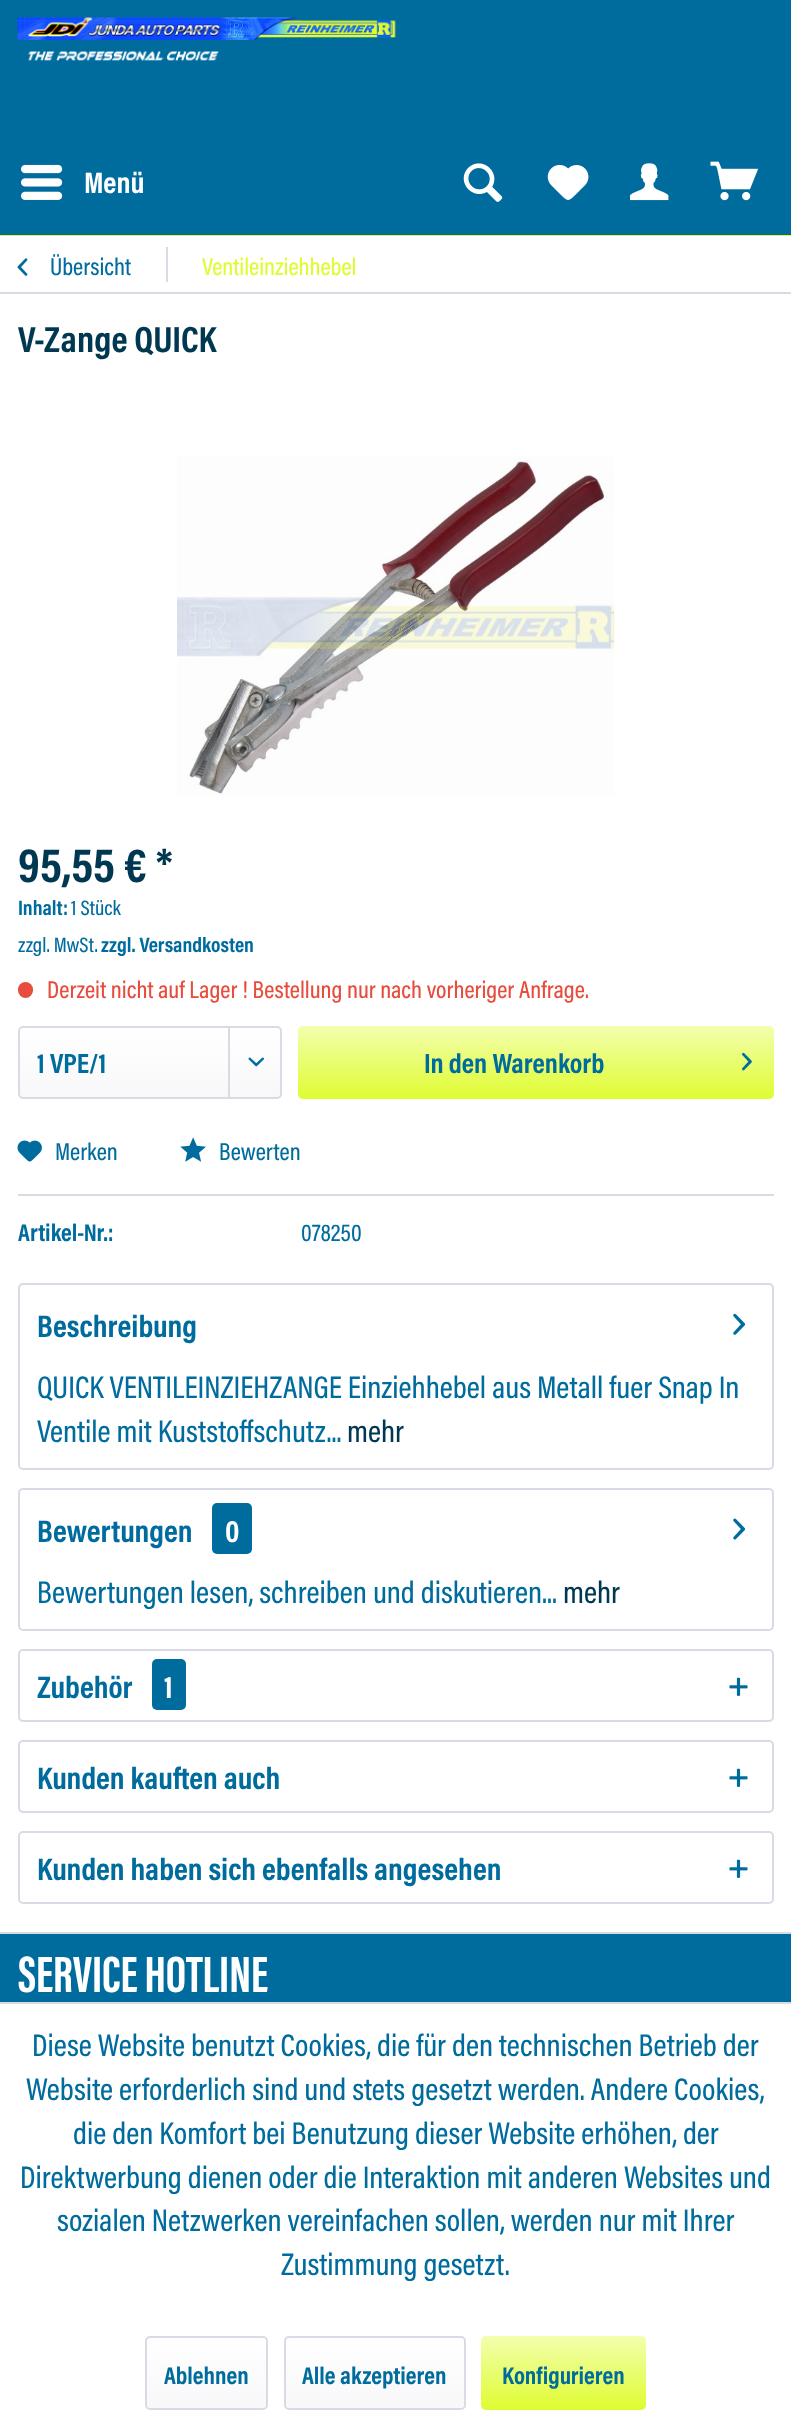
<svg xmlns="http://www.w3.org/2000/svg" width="791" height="2427">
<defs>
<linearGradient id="g1" gradientUnits="userSpaceOnUse" x1="150" y1="1027" x2="150" y2="1097"><stop offset="0" stop-color="#fff"/><stop offset="1" stop-color="#f8f8fa"/></linearGradient>
<linearGradient id="g2" gradientUnits="userSpaceOnUse" x1="536" y1="1026" x2="536" y2="1099"><stop offset="0" stop-color="#f3ffae"/><stop offset="1" stop-color="#dffc31"/></linearGradient>
<linearGradient id="g3" gradientUnits="userSpaceOnUse" x1="207" y1="2338" x2="207" y2="2408"><stop offset="0" stop-color="#fff"/><stop offset="1" stop-color="#f8f8fa"/></linearGradient>
<linearGradient id="g4" gradientUnits="userSpaceOnUse" x1="375" y1="2338" x2="375" y2="2408"><stop offset="0" stop-color="#fff"/><stop offset="1" stop-color="#f8f8fa"/></linearGradient>
<linearGradient id="g5" gradientUnits="userSpaceOnUse" x1="564" y1="2336" x2="564" y2="2410"><stop offset="0" stop-color="#f3ffae"/><stop offset="1" stop-color="#dffc31"/></linearGradient>
</defs>
<rect width="100%" height="100%" fill="#006c9e"/>
<rect y="235" width="791" height="1" fill="#dffc31"/>
<image x="17" y="17" width="379" height="44" href="media/1.png"/>
<image x="21" y="164" width="42" height="36" href="media/2.png"/>
<text x="84" y="193" style="font-family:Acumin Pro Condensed;font-size:30px;font-weight:bold;fill:#fff">Menü</text>
<image x="463" y="163" width="40" height="39" href="media/3.png"/>
<image x="547" y="164" width="42" height="36" href="media/4.png"/>
<image x="630" y="163" width="39" height="38" href="media/5.png"/>
<image x="710" y="161" width="49" height="40" href="media/6.png"/>
<rect y="292" width="791" height="2" fill="#dadae5"/>
<rect y="236" width="791" height="56" fill="#fff"/>
<image x="17" y="258" width="11" height="18" href="media/7.png"/>
<text x="50" y="275" style="font-family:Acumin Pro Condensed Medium;font-size:24.5px;font-weight:500;fill:#006c9e">Übersicht</text>
<rect x="166" y="247" width="2" height="35" fill="#dadae5"/>
<text x="202" y="275" style="font-family:Acumin Pro Condensed Medium;font-size:24.5px;font-weight:500;fill:#dffc31">Ventileinziehhebel</text>
<rect y="294" width="791" height="1638" fill="#fff"/>
<text x="18" y="352" style="font-family:Acumin Pro Condensed;font-size:36.75px;font-weight:bold;fill:#003852">V-Zange QUICK</text>
<image x="177" y="456" width="438" height="340" href="media/8.png"/>
<text x="18" y="882" style="font-family:Acumin Pro Condensed;font-size:49px;font-weight:bold;fill:#003852">95,55 € *</text>
<text x="18" y="915" style="font-family:Acumin Pro Condensed;font-size:21px;font-weight:bold;fill:#006c9e">Inhalt:</text>
<text x="71" y="915" style="font-family:Acumin Pro Condensed Medium;font-size:21px;font-weight:500;fill:#006c9e">1 Stück</text>
<text x="18" y="952" style="font-family:Acumin Pro Condensed Medium;font-size:21px;font-weight:500;fill:#006c9e">zzgl. MwSt.</text>
<text x="101" y="952" style="font-family:Acumin Pro Condensed;font-size:21px;font-weight:bold;fill:#006c9e">zzgl. Versandkosten</text>
<rect x="18" y="982" width="15" height="16" rx="7.5" fill="#e74c3c"/>
<text x="47" y="998" style="font-family:Acumin Pro Condensed Medium;font-size:24.5px;font-weight:500;fill:#e74c3c">Derzeit nicht auf Lager ! Bestellung nur nach vorheriger Anfrage.</text>
<rect x="19" y="1027" width="261" height="70" rx="4" fill="url(#g1)"/>
<rect x="19" y="1027" width="262" height="71" rx="4" fill="none" stroke="#dadae5" stroke-width="2"/>
<text x="37" y="1073" style="font-family:Acumin Pro Condensed;font-size:28px;font-weight:bold;fill:#006c9e">1 VPE/1</text>
<rect x="228" y="1027" width="2" height="70" fill="#dadae5"/>
<image x="248" y="1057" width="16" height="10" href="media/9.png"/>
<rect x="298" y="1026" width="476" height="73" rx="5" fill="url(#g2)"/>
<text x="424" y="1073" style="font-family:Acumin Pro Condensed;font-size:28px;font-weight:bold;fill:#006c9e">In den Warenkorb</text>
<image x="742" y="1052" width="10" height="19" href="media/10.png"/>
<rect x="18" y="1194" width="756" height="2" fill="#dadae5"/>
<image x="17" y="1140" width="25" height="22" href="media/11.png"/>
<text x="55" y="1160" style="font-family:Acumin Pro Condensed Medium;font-size:24.5px;font-weight:500;fill:#006c9e">Merken</text>
<image x="180" y="1137" width="26" height="25" href="media/12.png"/>
<text x="219" y="1160" style="font-family:Acumin Pro Condensed Medium;font-size:24.5px;font-weight:500;fill:#006c9e">Bewerten</text>
<text x="18" y="1241" style="font-family:Acumin Pro Condensed;font-size:24.5px;font-weight:bold;fill:#006c9e">Artikel-Nr.:</text>
<text x="301" y="1241" style="font-family:Acumin Pro Condensed Medium;font-size:24.5px;font-weight:500;fill:#006c9e">078250</text>
<rect x="19" y="1284" width="754" height="185" rx="4" fill="none" stroke="#dadae5" stroke-width="2"/>
<text x="37" y="1337" style="font-family:Acumin Pro Condensed;font-size:31.5px;font-weight:bold;fill:#006c9e">Beschreibung</text>
<image x="733" y="1313" width="13" height="22" href="media/13.png"/>
<text x="37" y="1398" style="font-family:Acumin Pro Condensed Medium;font-size:31.5px;font-weight:500;fill:#006c9e">QUICK VENTILEINZIEHZANGE Einziehhebel aus Metall fuer Snap In</text>
<text x="37" y="1442" style="font-family:Acumin Pro Condensed Medium;font-size:31.5px;font-weight:500;fill:#006c9e">Ventile mit Kuststoffschutz...</text>
<text x="347" y="1442" style="font-family:Acumin Pro Condensed Medium;font-size:31.5px;font-weight:500;fill:#003852">mehr</text>
<rect x="19" y="1489" width="754" height="141" rx="4" fill="none" stroke="#dadae5" stroke-width="2"/>
<text x="37" y="1542" style="font-family:Acumin Pro Condensed;font-size:31.5px;font-weight:bold;fill:#006c9e">Bewertungen</text>
<image x="733" y="1518" width="13" height="22" href="media/14.png"/>
<rect x="212" y="1503" width="40" height="51" rx="5" fill="#006c9e"/>
<text x="225" y="1542" style="font-family:Acumin Pro Condensed;font-size:31.5px;font-weight:bold;fill:#fff">0</text>
<text x="37" y="1603" style="font-family:Acumin Pro Condensed Medium;font-size:31.5px;font-weight:500;fill:#006c9e">Bewertungen lesen, schreiben und diskutieren...</text>
<text x="563" y="1603" style="font-family:Acumin Pro Condensed Medium;font-size:31.5px;font-weight:500;fill:#003852">mehr</text>
<rect x="19" y="1650" width="754" height="71" rx="4" fill="none" stroke="#dadae5" stroke-width="2"/>
<text x="37" y="1698" style="font-family:Acumin Pro Condensed;font-size:31.5px;font-weight:bold;fill:#006c9e">Zubehör</text>
<rect x="152" y="1659" width="34" height="51" rx="5" fill="#006c9e"/>
<text x="164" y="1698" style="font-family:Acumin Pro Condensed;font-size:31.5px;font-weight:bold;fill:#fff">1</text>
<image x="729" y="1677" width="19" height="19" href="media/15.png"/>
<rect x="19" y="1741" width="754" height="71" rx="4" fill="none" stroke="#dadae5" stroke-width="2"/>
<text x="37" y="1789" style="font-family:Acumin Pro Condensed;font-size:31.5px;font-weight:bold;fill:#006c9e">Kunden kauften auch</text>
<image x="729" y="1768" width="19" height="19" href="media/15.png"/>
<rect x="19" y="1832" width="754" height="71" rx="4" fill="none" stroke="#dadae5" stroke-width="2"/>
<text x="37" y="1880" style="font-family:Acumin Pro Condensed;font-size:31.5px;font-weight:bold;fill:#006c9e">Kunden haben sich ebenfalls angesehen</text>
<image x="729" y="1859" width="19" height="19" href="media/15.png"/>
<rect y="1932" width="791" height="2" fill="#dadae5"/>
<text x="18" y="1992" style="font-family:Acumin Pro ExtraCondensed;font-size:52.5px;font-weight:bold;fill:#fff">SERVICE HOTLINE</text>
<rect y="2004" width="791" height="423" fill="#fff"/>
<rect y="2002" width="791" height="2" fill="#dadae5"/>
<text x="32" y="2056" style="font-family:Acumin Pro Condensed Medium;font-size:31.5px;font-weight:500;fill:#006c9e">Diese Website benutzt Cookies, die für den technischen Betrieb der</text>
<text x="26" y="2100" style="font-family:Acumin Pro Condensed Medium;font-size:31.5px;font-weight:500;fill:#006c9e">Website erforderlich sind und stets gesetzt werden. Andere Cookies,</text>
<text x="73" y="2144" style="font-family:Acumin Pro Condensed Medium;font-size:31.5px;font-weight:500;fill:#006c9e">die den Komfort bei Benutzung dieser Website erhöhen, der</text>
<text x="20" y="2188" style="font-family:Acumin Pro Condensed Medium;font-size:31.5px;font-weight:500;fill:#006c9e">Direktwerbung dienen oder die Interaktion mit anderen Websites und</text>
<text x="57" y="2231" style="font-family:Acumin Pro Condensed Medium;font-size:31.5px;font-weight:500;fill:#006c9e">sozialen Netzwerken vereinfachen sollen, werden nur mit Ihrer</text>
<text x="281" y="2275" style="font-family:Acumin Pro Condensed Medium;font-size:31.5px;font-weight:500;fill:#006c9e">Zustimmung gesetzt.</text>
<rect x="147" y="2338" width="119" height="70" rx="4" fill="url(#g3)"/>
<rect x="146" y="2337" width="121" height="72" rx="4" fill="none" stroke="#dadae5" stroke-width="2"/>
<text x="164" y="2384" style="font-family:Acumin Pro Condensed;font-size:24.5px;font-weight:bold;fill:#006c9e">Ablehnen</text>
<rect x="285" y="2338" width="179" height="70" rx="4" fill="url(#g4)"/>
<rect x="285" y="2337" width="180" height="72" rx="4" fill="none" stroke="#dadae5" stroke-width="2"/>
<text x="302" y="2384" style="font-family:Acumin Pro Condensed;font-size:24.5px;font-weight:bold;fill:#006c9e">Alle akzeptieren</text>
<rect x="481" y="2336" width="165" height="74" rx="5" fill="url(#g5)"/>
<text x="502" y="2384" style="font-family:Acumin Pro Condensed;font-size:24.5px;font-weight:bold;fill:#006c9e">Konfigurieren</text>
</svg>
